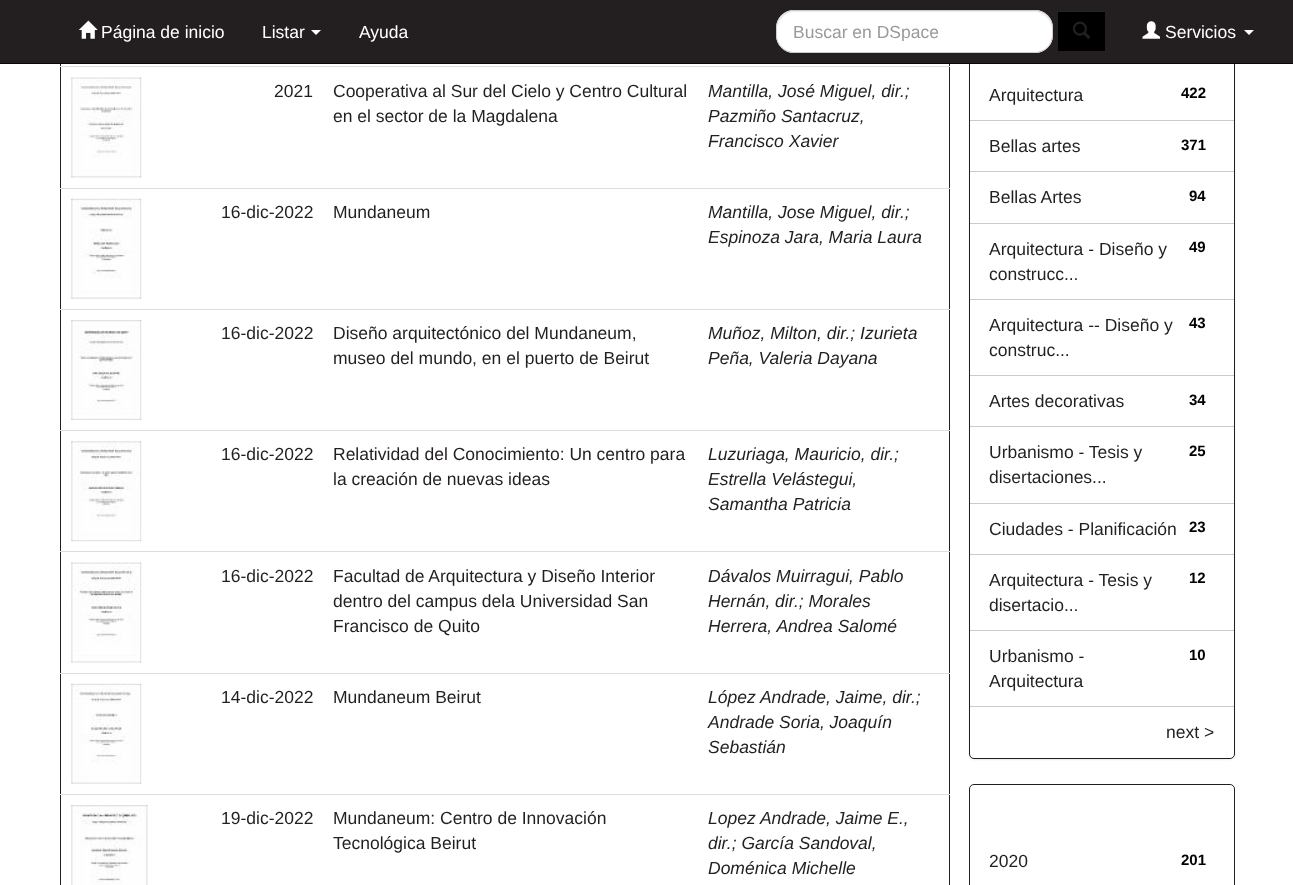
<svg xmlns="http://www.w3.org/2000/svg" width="1293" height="885">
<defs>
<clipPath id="clip1"><rect x="793" y="21" width="243" height="20"/></clipPath>
<clipPath id="clip2"><path d="M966 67h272v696h-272zm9 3h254c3 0 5 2 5 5v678c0 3-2 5-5 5h-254c-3 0-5-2-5-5v-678c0-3 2-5 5-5z" clip-rule="evenodd"/></clipPath>
</defs>
<rect width="100%" height="100%" fill="#fff"/>
<rect x="60.5" y="-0.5" width="889" height="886" fill="none" stroke="#231f20"/>
<rect x="969" y="19" width="266" height="741" rx="5" fill="#0000000d" filter="blur(1px)"/>
<rect x="969.5" y="18.5" width="265" height="740" rx="4.5" fill="#fff" stroke="#231f20"/>
<rect width="1293" height="63" fill="#231f20"/>
<rect y="63" width="1293" height="1" fill="#080808"/>
<image x="78" y="20" width="20" height="19" href="media/1.png"/>
<text x="101" y="38" style="font-family:Liberation Sans;font-size:17.5px;fill:#fff">Página de inicio</text>
<text x="262" y="38" style="font-family:Liberation Sans;font-size:17.5px;fill:#fff">Listar</text>
<path d="M311 30h10l-5 5z" fill="#fff"/>
<text x="359" y="38" style="font-family:Liberation Sans;font-size:17.5px;fill:#fff">Ayuda</text>
<rect x="776" y="10" width="277" height="43" rx="18" fill="#fff"/>
<path d="M794 12h241c9 0 16 8 16 17v-2c0-9-7-16-16-16h-241c-9 0-16 7-16 16v2c0-9 7-17 16-17z" fill="#ececec"/>
<rect x="776.5" y="10.5" width="276" height="42" rx="17.5" fill="none" stroke="#ccc"/>
<g clip-path="url(#clip1)">
<text x="793" y="38" style="font-family:Liberation Sans;font-size:17.5px;fill:#999">Buscar en DSpace</text>
</g>
<rect x="1058" y="12" width="47" height="39" fill="#000"/>
<rect x="1058" y="11" width="47" height="1" fill="#262626"/>
<image x="1072" y="21" width="18" height="18" href="media/2.png"/>
<image x="1142" y="21" width="18" height="18" href="media/3.png"/>
<text x="1165" y="38" style="font-family:Liberation Sans;font-size:17.5px;fill:#fff">Servicios</text>
<path d="M1244 30h10l-5 5z" fill="#fff"/>
<image x="71" y="77" width="71" height="101" href="media/4.png"/>
<text x="274" y="97" style="font-family:Liberation Sans;font-size:17.5px;fill:#231f20">2021</text>
<text x="333" y="97" style="font-family:Liberation Sans;font-size:17.5px;fill:#231f20">Cooperativa al Sur del Cielo y Centro Cultural</text>
<text x="333" y="122" style="font-family:Liberation Sans;font-size:17.5px;fill:#231f20">en el sector de la Magdalena</text>
<rect x="60" y="66" width="890" height="1" fill="#ddd"/>
<text x="708" y="97" style="font-family:Liberation Sans;font-size:17.5px;font-style:italic;fill:#231f20">Mantilla, José Miguel, dir.;</text>
<text x="708" y="122" style="font-family:Liberation Sans;font-size:17.5px;font-style:italic;fill:#231f20">Pazmiño Santacruz,</text>
<text x="708" y="147" style="font-family:Liberation Sans;font-size:17.5px;font-style:italic;fill:#231f20">Francisco Xavier</text>
<image x="71" y="198" width="71" height="101" href="media/5.png"/>
<text x="221" y="218" style="font-family:Liberation Sans;font-size:17.5px;fill:#231f20">16-dic-2022</text>
<text x="333" y="218" style="font-family:Liberation Sans;font-size:17.5px;fill:#231f20">Mundaneum</text>
<rect x="60" y="188" width="890" height="1" fill="#ddd"/>
<text x="708" y="218" style="font-family:Liberation Sans;font-size:17.5px;font-style:italic;fill:#231f20">Mantilla, Jose Miguel, dir.;</text>
<text x="708" y="243" style="font-family:Liberation Sans;font-size:17.5px;font-style:italic;fill:#231f20">Espinoza Jara, Maria Laura</text>
<image x="71" y="320" width="71" height="100" href="media/6.png"/>
<text x="221" y="339" style="font-family:Liberation Sans;font-size:17.5px;fill:#231f20">16-dic-2022</text>
<text x="333" y="339" style="font-family:Liberation Sans;font-size:17.5px;fill:#231f20">Diseño arquitectónico del Mundaneum,</text>
<text x="333" y="364" style="font-family:Liberation Sans;font-size:17.5px;fill:#231f20">museo del mundo, en el puerto de Beirut</text>
<rect x="60" y="309" width="890" height="1" fill="#ddd"/>
<text x="708" y="339" style="font-family:Liberation Sans;font-size:17.5px;font-style:italic;fill:#231f20">Muñoz, Milton, dir.; Izurieta</text>
<text x="708" y="364" style="font-family:Liberation Sans;font-size:17.5px;font-style:italic;fill:#231f20">Peña, Valeria Dayana</text>
<image x="71" y="441" width="71" height="101" href="media/7.png"/>
<text x="221" y="460" style="font-family:Liberation Sans;font-size:17.5px;fill:#231f20">16-dic-2022</text>
<text x="333" y="460" style="font-family:Liberation Sans;font-size:17.5px;fill:#231f20">Relatividad del Conocimiento: Un centro para</text>
<text x="333" y="485" style="font-family:Liberation Sans;font-size:17.5px;fill:#231f20">la creación de nuevas ideas</text>
<rect x="60" y="430" width="890" height="1" fill="#ddd"/>
<text x="708" y="460" style="font-family:Liberation Sans;font-size:17.5px;font-style:italic;fill:#231f20">Luzuriaga, Mauricio, dir.;</text>
<text x="708" y="485" style="font-family:Liberation Sans;font-size:17.5px;font-style:italic;fill:#231f20">Estrella Velástegui,</text>
<text x="708" y="510" style="font-family:Liberation Sans;font-size:17.5px;font-style:italic;fill:#231f20">Samantha Patricia</text>
<image x="71" y="562" width="71" height="101" href="media/8.png"/>
<text x="221" y="582" style="font-family:Liberation Sans;font-size:17.5px;fill:#231f20">16-dic-2022</text>
<text x="333" y="582" style="font-family:Liberation Sans;font-size:17.5px;fill:#231f20">Facultad de Arquitectura y Diseño Interior</text>
<text x="333" y="607" style="font-family:Liberation Sans;font-size:17.5px;fill:#231f20">dentro del campus dela Universidad San</text>
<text x="333" y="632" style="font-family:Liberation Sans;font-size:17.5px;fill:#231f20">Francisco de Quito</text>
<rect x="60" y="551" width="890" height="1" fill="#ddd"/>
<text x="708" y="582" style="font-family:Liberation Sans;font-size:17.5px;font-style:italic;fill:#231f20">Dávalos Muirragui, Pablo</text>
<text x="708" y="607" style="font-family:Liberation Sans;font-size:17.5px;font-style:italic;fill:#231f20">Hernán, dir.; Morales</text>
<text x="708" y="632" style="font-family:Liberation Sans;font-size:17.5px;font-style:italic;fill:#231f20">Herrera, Andrea Salomé</text>
<image x="71" y="683" width="71" height="101" href="media/9.png"/>
<text x="221" y="703" style="font-family:Liberation Sans;font-size:17.5px;fill:#231f20">14-dic-2022</text>
<text x="333" y="703" style="font-family:Liberation Sans;font-size:17.5px;fill:#231f20">Mundaneum Beirut</text>
<rect x="60" y="673" width="890" height="1" fill="#ddd"/>
<text x="708" y="703" style="font-family:Liberation Sans;font-size:17.5px;font-style:italic;fill:#231f20">López Andrade, Jaime, dir.;</text>
<text x="708" y="728" style="font-family:Liberation Sans;font-size:17.5px;font-style:italic;fill:#231f20">Andrade Soria, Joaquín</text>
<text x="708" y="753" style="font-family:Liberation Sans;font-size:17.5px;font-style:italic;fill:#231f20">Sebastián</text>
<image x="71" y="805" width="77" height="80" href="media/10.png"/>
<text x="221" y="824" style="font-family:Liberation Sans;font-size:17.5px;fill:#231f20">19-dic-2022</text>
<text x="333" y="824" style="font-family:Liberation Sans;font-size:17.5px;fill:#231f20">Mundaneum: Centro de Innovación</text>
<text x="333" y="849" style="font-family:Liberation Sans;font-size:17.5px;fill:#231f20">Tecnológica Beirut</text>
<rect x="60" y="794" width="890" height="1" fill="#ddd"/>
<text x="708" y="824" style="font-family:Liberation Sans;font-size:17.5px;font-style:italic;fill:#231f20">Lopez Andrade, Jaime E.,</text>
<text x="708" y="849" style="font-family:Liberation Sans;font-size:17.5px;font-style:italic;fill:#231f20">dir.; García Sandoval,</text>
<text x="708" y="874" style="font-family:Liberation Sans;font-size:17.5px;font-style:italic;fill:#231f20">Doménica Michelle</text>
<g clip-path="url(#clip2)">
<rect x="970" y="71" width="264" height="688" rx="5" fill="#00000012" filter="blur(1px)"/>
</g>
<rect x="970" y="120" width="264" height="1" fill="#cbcbcb"/>
<text x="989" y="101" style="font-family:Liberation Sans;font-size:17.5px;fill:#231f20">Arquitectura</text>
<text x="1181" y="98" style="font-family:Liberation Sans;font-size:15px;font-weight:bold;fill:#000">422</text>
<rect x="1233" y="121" width="1" height="50" fill="#fff"/>
<rect x="970" y="171" width="264" height="1" fill="#cbcbcb"/>
<text x="989" y="152" style="font-family:Liberation Sans;font-size:17.5px;fill:#231f20">Bellas artes</text>
<text x="1181" y="150" style="font-family:Liberation Sans;font-size:15px;font-weight:bold;fill:#000">371</text>
<rect x="970" y="223" width="264" height="1" fill="#cbcbcb"/>
<text x="989" y="203" style="font-family:Liberation Sans;font-size:17.5px;fill:#231f20">Bellas Artes</text>
<text x="1189" y="201" style="font-family:Liberation Sans;font-size:15px;font-weight:bold;fill:#000">94</text>
<rect x="1233" y="224" width="1" height="75" fill="#fff"/>
<rect x="970" y="299" width="264" height="1" fill="#cbcbcb"/>
<text x="989" y="255" style="font-family:Liberation Sans;font-size:17.5px;fill:#231f20">Arquitectura - Diseño y</text>
<text x="1189" y="252" style="font-family:Liberation Sans;font-size:15px;font-weight:bold;fill:#000">49</text>
<text x="989" y="280" style="font-family:Liberation Sans;font-size:17.5px;fill:#231f20">construcc...</text>
<rect x="970" y="375" width="264" height="1" fill="#cbcbcb"/>
<text x="989" y="331" style="font-family:Liberation Sans;font-size:17.5px;fill:#231f20">Arquitectura -- Diseño y</text>
<text x="1189" y="328" style="font-family:Liberation Sans;font-size:15px;font-weight:bold;fill:#000">43</text>
<text x="989" y="356" style="font-family:Liberation Sans;font-size:17.5px;fill:#231f20">construc...</text>
<rect x="1233" y="376" width="1" height="50" fill="#fff"/>
<rect x="970" y="426" width="264" height="1" fill="#cbcbcb"/>
<text x="989" y="407" style="font-family:Liberation Sans;font-size:17.5px;fill:#231f20">Artes decorativas</text>
<text x="1189" y="405" style="font-family:Liberation Sans;font-size:15px;font-weight:bold;fill:#000">34</text>
<rect x="970" y="503" width="264" height="1" fill="#cbcbcb"/>
<text x="989" y="458" style="font-family:Liberation Sans;font-size:17.5px;fill:#231f20">Urbanismo - Tesis y</text>
<text x="1189" y="456" style="font-family:Liberation Sans;font-size:15px;font-weight:bold;fill:#000">25</text>
<text x="989" y="483" style="font-family:Liberation Sans;font-size:17.5px;fill:#231f20">disertaciones...</text>
<rect x="1233" y="504" width="1" height="50" fill="#fff"/>
<rect x="970" y="554" width="264" height="1" fill="#cbcbcb"/>
<text x="989" y="535" style="font-family:Liberation Sans;font-size:17.5px;fill:#231f20">Ciudades - Planificación</text>
<text x="1189" y="532" style="font-family:Liberation Sans;font-size:15px;font-weight:bold;fill:#000">23</text>
<rect x="970" y="630" width="264" height="1" fill="#cbcbcb"/>
<text x="989" y="586" style="font-family:Liberation Sans;font-size:17.5px;fill:#231f20">Arquitectura - Tesis y</text>
<text x="1189" y="583" style="font-family:Liberation Sans;font-size:15px;font-weight:bold;fill:#000">12</text>
<text x="989" y="611" style="font-family:Liberation Sans;font-size:17.5px;fill:#231f20">disertacio...</text>
<rect x="1233" y="631" width="1" height="75" fill="#fff"/>
<rect x="970" y="706" width="264" height="1" fill="#cbcbcb"/>
<text x="989" y="662" style="font-family:Liberation Sans;font-size:17.5px;fill:#231f20">Urbanismo -</text>
<text x="1189" y="660" style="font-family:Liberation Sans;font-size:15px;font-weight:bold;fill:#000">10</text>
<text x="989" y="687" style="font-family:Liberation Sans;font-size:17.5px;fill:#231f20">Arquitectura</text>
<text x="1166" y="738" style="font-family:Liberation Sans;font-size:17.5px;fill:#231f20">next &gt;</text>
<rect x="969.5" y="784.5" width="265" height="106" rx="4.5" fill="none" stroke="#231f20"/>
<text x="989" y="867" style="font-family:Liberation Sans;font-size:17.5px;fill:#231f20">2020</text>
<text x="1181" y="865" style="font-family:Liberation Sans;font-size:15px;font-weight:bold;fill:#000">201</text>
</svg>
